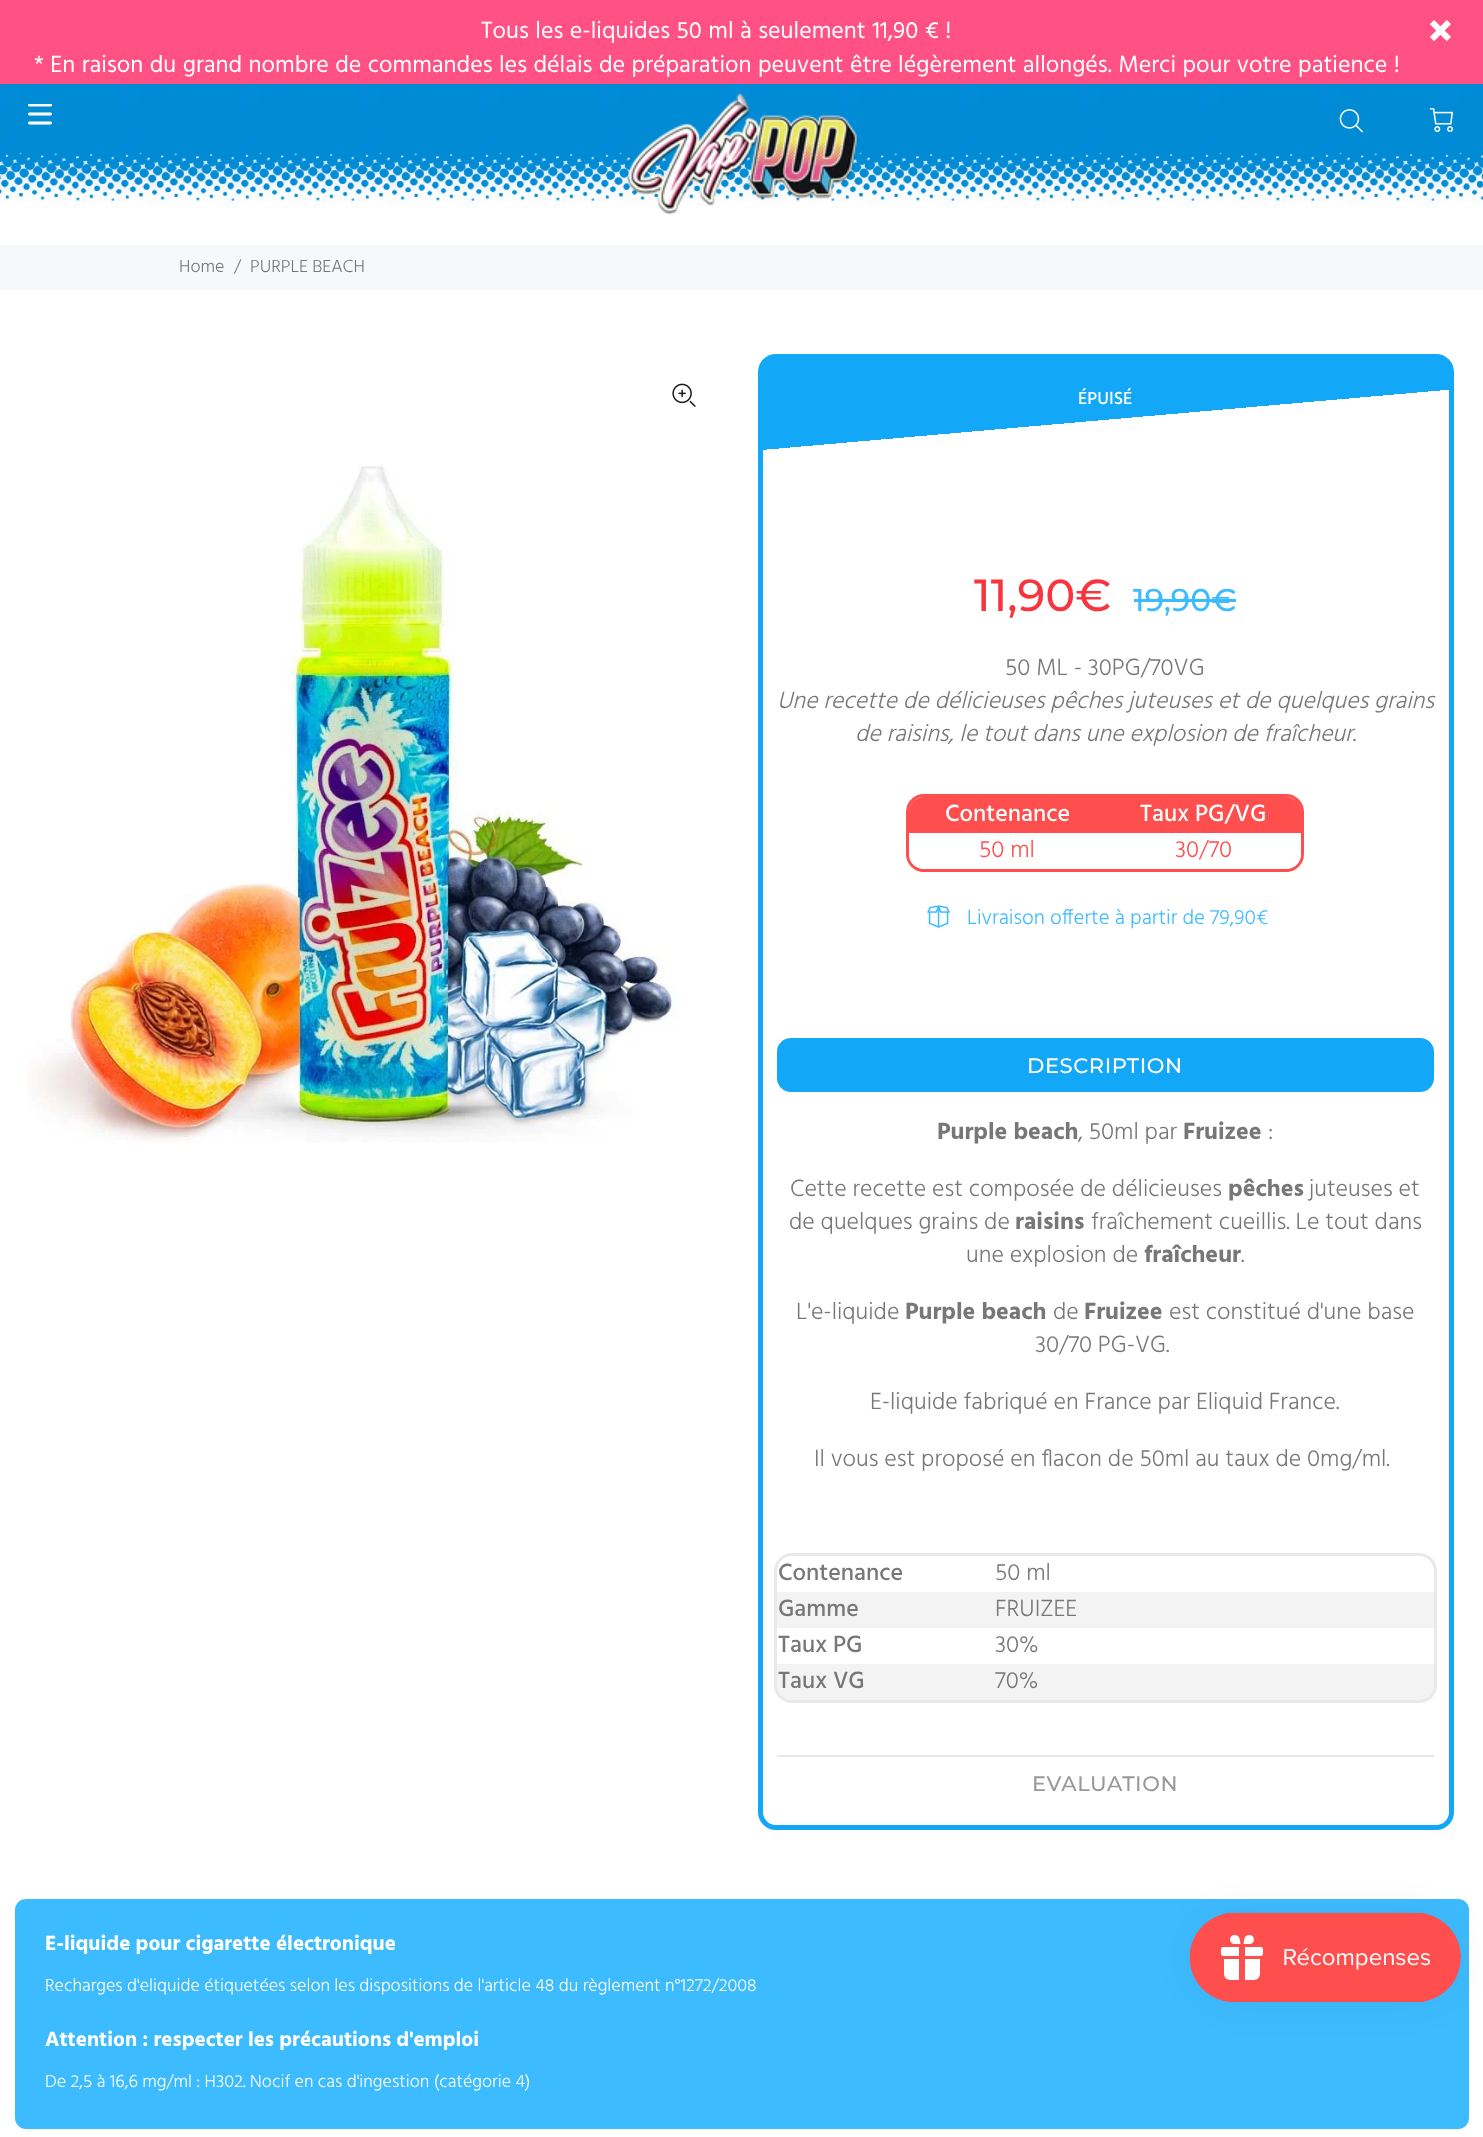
<svg xmlns="http://www.w3.org/2000/svg" width="1483" height="2137">
<defs>
<clipPath id="clip1"><rect x="758" y="354" width="696" height="1476" rx="18"/></clipPath>
<linearGradient id="g1" gradientUnits="userSpaceOnUse" x1="1039" y1="334" x2="1172" y2="1850"><stop offset="0.06" stop-color="#13a7f7"/><stop offset="0.06" stop-color="#fff"/></linearGradient>
</defs>
<rect width="100%" height="100%" fill="#fff"/>
<rect width="1483" height="84" fill="#ff5184"/>
<text x="481" y="38" word-spacing="0.6" style="font-family:Hind;font-size:24px;fill:#fff">Tous les e-liquides 50 ml à seulement 11,90 € !</text>
<text x="34" y="72" word-spacing="0.6" style="font-family:Hind;font-size:24px;fill:#fff">* En raison du grand nombre de commandes les délais de préparation peuvent être légèrement allongés. Merci pour votre patience !</text>
<image x="1429" y="20" width="22" height="22" href="media/1.png"/>
<image x="0" y="84" width="1483" height="117" href="media/2.png"/>
<image x="0" y="151" width="1483" height="50" href="media/3.png"/>
<image x="0" y="152" width="1483" height="49" href="media/4.png"/>
<image x="28" y="104" width="24" height="21" href="media/5.png"/>
<image x="627" y="92" width="232" height="123" href="media/6.png"/>
<image x="1339" y="109" width="24" height="24" href="media/7.png"/>
<image x="1429" y="108" width="24" height="24" href="media/8.png"/>
<rect y="245" width="1483" height="45" fill="#f7f8fa"/>
<text x="179" y="272" style="font-family:Hind;font-size:18px;font-weight:300;fill:#777">Home</text>
<text x="234" y="272" style="font-family:Hind;font-size:18px;font-weight:300;fill:#777">/</text>
<text x="250" y="272" style="font-family:Hind;font-size:18px;font-weight:300;fill:#777">PURPLE BEACH</text>
<image x="672" y="383" width="24" height="24" href="media/9.png"/>
<image x="28" y="465" width="651" height="678" href="media/10.png"/>
<g clip-path="url(#clip1)">
<rect x="762" y="359" width="687" height="1467" fill="url(#g1)"/>
</g>
<rect x="760.5" y="356.5" width="691" height="1471" rx="15.5" fill="none" stroke="#13a7f7" stroke-width="5"/>
<text x="1078" y="404" style="font-family:Hind;font-size:18px;font-weight:500;fill:#fff">ÉPUISÉ</text>
<text x="974" y="611" style="font-family:Montserrat;font-size:45px;font-weight:500;fill:#f8353e">11,90€</text>
<text x="1133" y="611" style="font-family:Montserrat;font-size:31.5px;font-weight:500;fill:#3dbbff">19,90€</text>
<rect x="1134" y="599" width="102" height="3" fill="#3dbbff"/>
<text x="1005" y="675" style="font-family:Hind;font-size:24px;font-weight:300;fill:#777">50 ML - 30PG/70VG</text>
<text x="777" y="708" style="font-family:Hind;font-size:24px;font-weight:300;font-style:italic;fill:#777">Une recette de délicieuses pêches juteuses et de quelques grains</text>
<text x="855" y="741" style="font-family:Hind;font-size:24px;font-weight:300;font-style:italic;fill:#777">de raisins, le tout dans une explosion de fraîcheur.</text>
<rect x="907.5" y="795.5" width="395" height="75" rx="16.5" fill="none" stroke="#ff4e4e" stroke-width="3"/>
<path d="M924 797h362c8.5 0 15 6.5 15 15v21h-392v-21c0-8.5 6.5-15 15-15z" fill="#ff4e4e"/>
<text x="945" y="821" style="font-family:Hind;font-size:24px;font-weight:500;fill:#fff">Contenance</text>
<text x="1140" y="821" style="font-family:Hind;font-size:24px;font-weight:500;fill:#fff">Taux PG/VG</text>
<path d="M909 833h392v21c0 8.5-6.5 15-15 15h-362c-8.5 0-15-6.5-15-15z" fill="#fff"/>
<text x="979" y="857" style="font-family:Hind;font-size:24px;font-weight:300;fill:#ff4e4e">50 ml</text>
<text x="1175" y="857" style="font-family:Hind;font-size:24px;font-weight:300;fill:#ff4e4e">30/70</text>
<image x="927" y="905" width="23" height="23" href="media/11.png"/>
<text x="967" y="924" style="font-family:Hind;font-size:21px;font-weight:300;fill:#3dbbff">Livraison offerte à partir de 79,90€</text>
<rect x="777" y="1755" width="657" height="2" fill="#e9e7e7"/>
<rect x="777" y="1038" width="657" height="54" rx="14" fill="#13a7f7"/>
<text x="1027" y="1073" style="font-family:Montserrat;font-size:21px;font-weight:500;letter-spacing:0.6px;fill:#fff">DESCRIPTION</text>
<text x="937" y="1139" style="font-family:Hind;font-size:24px;font-weight:bold;fill:#777">Purple beach</text>
<text x="1078" y="1139" style="font-family:Hind;font-size:24px;font-weight:300;fill:#777">, 50ml par</text>
<text x="1183" y="1139" style="font-family:Hind;font-size:24px;font-weight:bold;fill:#777">Fruizee</text>
<text x="1268" y="1139" style="font-family:Hind;font-size:24px;font-weight:300;fill:#777">:</text>
<text x="790" y="1196" style="font-family:Hind;font-size:24px;font-weight:300;fill:#777">Cette recette est composée de délicieuses</text>
<text x="1228" y="1196" style="font-family:Hind;font-size:24px;font-weight:bold;fill:#777">pêches</text>
<text x="1309" y="1196" style="font-family:Hind;font-size:24px;font-weight:300;fill:#777">juteuses et</text>
<text x="789" y="1229" style="font-family:Hind;font-size:24px;font-weight:300;fill:#777">de quelques grains de</text>
<text x="1015" y="1229" style="font-family:Hind;font-size:24px;font-weight:bold;fill:#777">raisins</text>
<text x="1091" y="1229" style="font-family:Hind;font-size:24px;font-weight:300;fill:#777">fraîchement cueillis. Le tout dans</text>
<text x="966" y="1262" style="font-family:Hind;font-size:24px;font-weight:300;fill:#777">une explosion de</text>
<text x="1144" y="1262" style="font-family:Hind;font-size:24px;font-weight:bold;fill:#777">fraîcheur</text>
<text x="1241" y="1262" style="font-family:Hind;font-size:24px;font-weight:300;fill:#777">.</text>
<text x="796" y="1319" style="font-family:Hind;font-size:24px;font-weight:300;fill:#777">L'e-liquide</text>
<text x="905" y="1319" style="font-family:Hind;font-size:24px;font-weight:bold;fill:#777">Purple beach</text>
<text x="1053" y="1319" style="font-family:Hind;font-size:24px;font-weight:300;fill:#777">de</text>
<text x="1084" y="1319" style="font-family:Hind;font-size:24px;font-weight:bold;fill:#777">Fruizee</text>
<text x="1169" y="1319" style="font-family:Hind;font-size:24px;font-weight:300;fill:#777">est constitué d'une base</text>
<text x="1035" y="1352" style="font-family:Hind;font-size:24px;font-weight:300;fill:#777">30/70 PG-VG.</text>
<text x="870" y="1409" style="font-family:Hind;font-size:24px;font-weight:300;fill:#777">E-liquide fabriqué en France par Eliquid France.</text>
<text x="814" y="1466" style="font-family:Hind;font-size:24px;font-weight:300;fill:#777">Il vous est proposé en flacon de 50ml au taux de 0mg/ml.</text>
<rect x="775.5" y="1554.5" width="660" height="147" rx="16.5" fill="none" stroke="#e9e9e9" stroke-width="3"/>
<text x="778" y="1580" style="font-family:Hind;font-size:24px;font-weight:500;fill:#777">Contenance</text>
<text x="995" y="1580" style="font-family:Hind;font-size:24px;font-weight:300;fill:#777">50 ml</text>
<rect x="777" y="1592" width="657" height="36" fill="#f3f3f3"/>
<text x="778" y="1616" style="font-family:Hind;font-size:24px;font-weight:500;fill:#777">Gamme</text>
<text x="995" y="1616" style="font-family:Hind;font-size:24px;font-weight:300;fill:#777">FRUIZEE</text>
<text x="778" y="1652" style="font-family:Hind;font-size:24px;font-weight:500;fill:#777">Taux PG</text>
<text x="995" y="1652" style="font-family:Hind;font-size:24px;font-weight:300;fill:#777">30%</text>
<path d="M777 1664h657v21c0 8.5-6.5 15-15 15h-627c-8.5 0-15-6.5-15-15z" fill="#f3f3f3"/>
<text x="778" y="1688" style="font-family:Hind;font-size:24px;font-weight:500;fill:#777">Taux VG</text>
<text x="995" y="1688" style="font-family:Hind;font-size:24px;font-weight:300;fill:#777">70%</text>
<text x="1032" y="1791" style="font-family:Montserrat;font-size:21px;font-weight:500;letter-spacing:0.6px;fill:#999">EVALUATION</text>
<rect x="15" y="1899" width="1454" height="230" rx="11" fill="#3dbbff"/>
<text x="45" y="1950" style="font-family:Hind;font-size:21px;font-weight:bold;fill:#fff">E-liquide pour cigarette électronique</text>
<text x="45" y="1991" style="font-family:Hind;font-size:18px;font-weight:300;fill:#fff">Recharges d'eliquide étiquetées selon les dispositions de l'article 48 du règlement n°1272/2008</text>
<text x="45" y="2046" style="font-family:Hind;font-size:21px;font-weight:bold;fill:#fff">Attention : respecter les précautions d'emploi</text>
<text x="45" y="2087" style="font-family:Hind;font-size:18px;font-weight:300;fill:#fff">De 2,5 à 16,6 mg/ml : H302. Nocif en cas d'ingestion (catégorie 4)</text>
<rect x="1190" y="1913" width="271" height="90" rx="45" fill="#0000000d" filter="blur(19px)"/>
<image x="1189" y="1912" width="272" height="91" href="media/12.png"/>
</svg>
